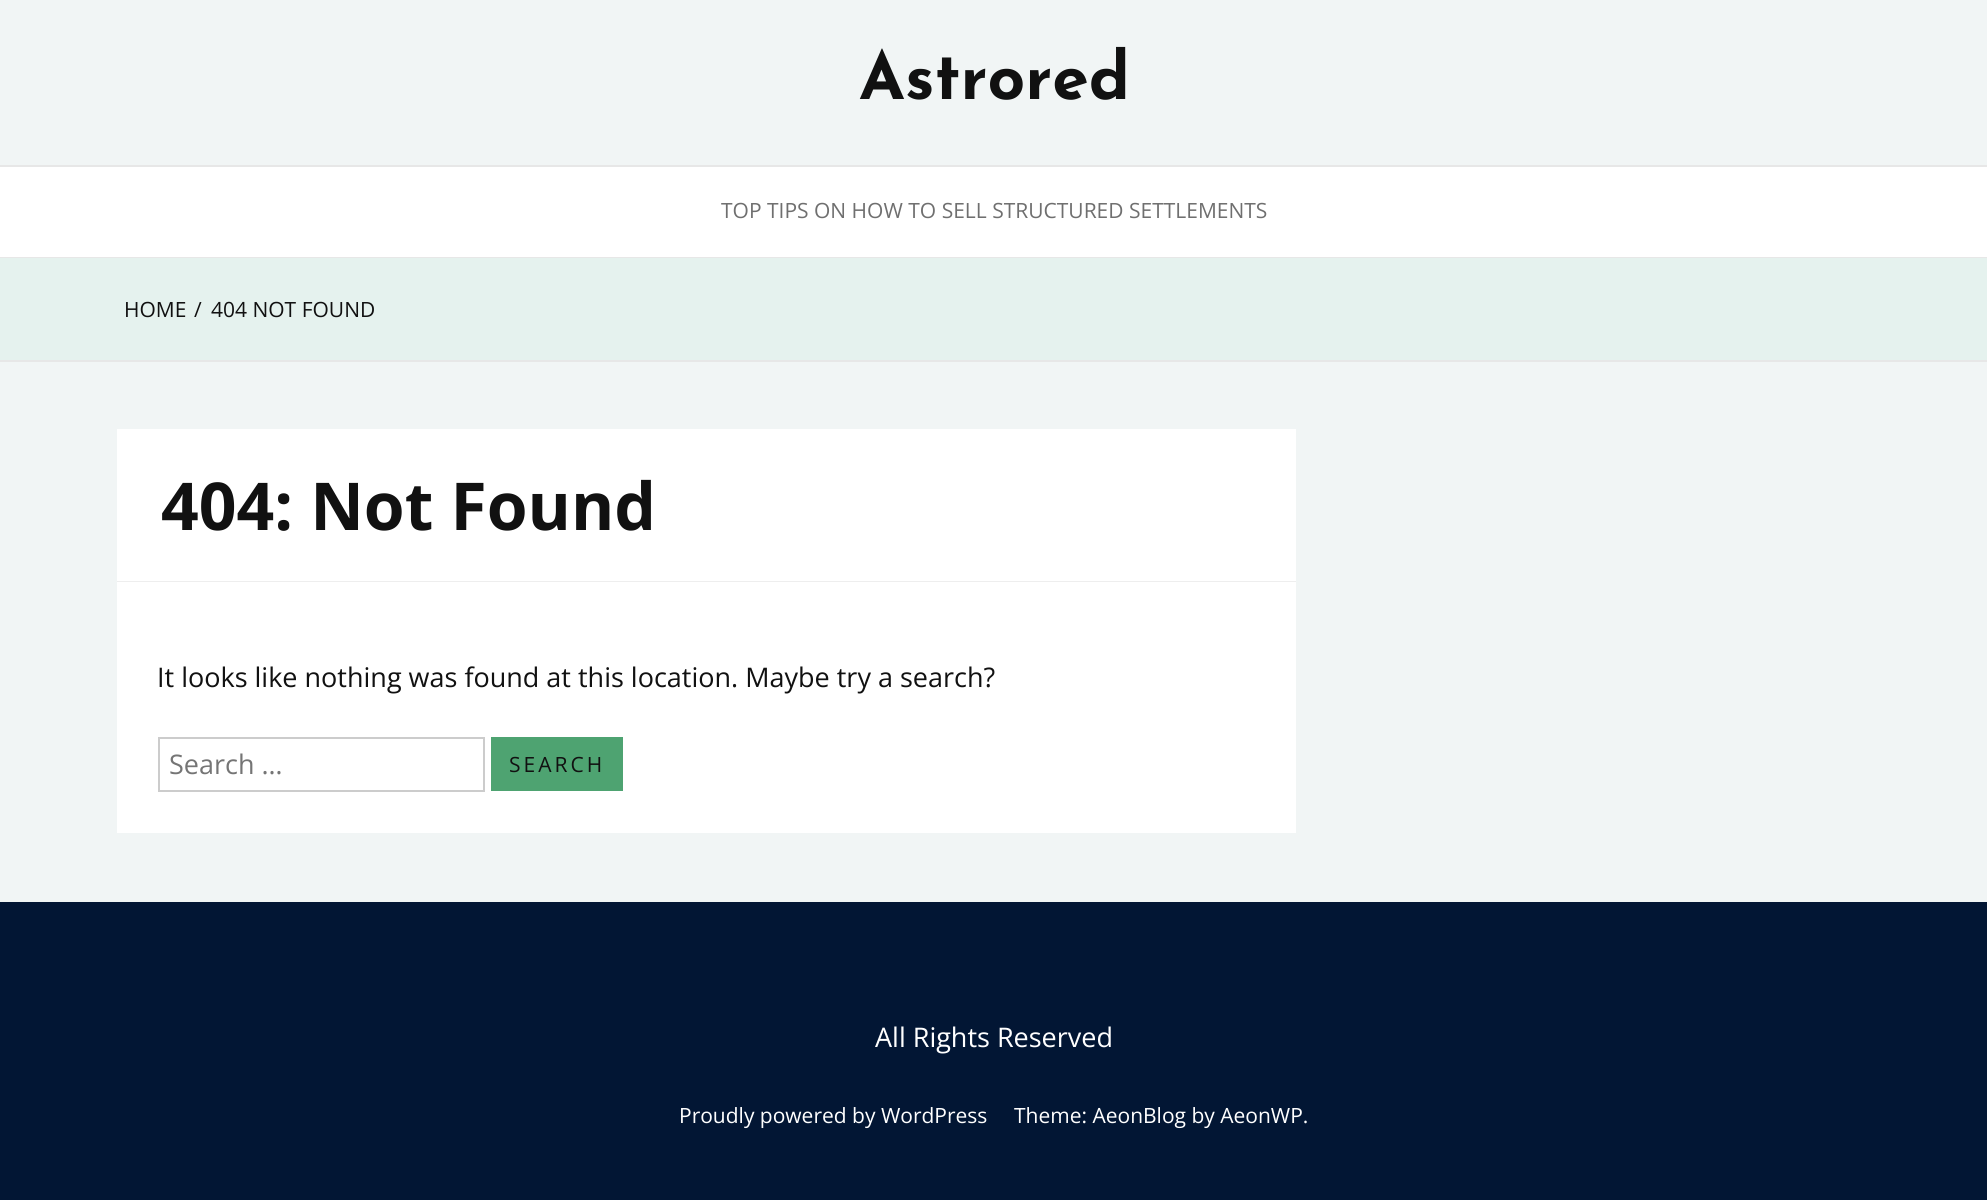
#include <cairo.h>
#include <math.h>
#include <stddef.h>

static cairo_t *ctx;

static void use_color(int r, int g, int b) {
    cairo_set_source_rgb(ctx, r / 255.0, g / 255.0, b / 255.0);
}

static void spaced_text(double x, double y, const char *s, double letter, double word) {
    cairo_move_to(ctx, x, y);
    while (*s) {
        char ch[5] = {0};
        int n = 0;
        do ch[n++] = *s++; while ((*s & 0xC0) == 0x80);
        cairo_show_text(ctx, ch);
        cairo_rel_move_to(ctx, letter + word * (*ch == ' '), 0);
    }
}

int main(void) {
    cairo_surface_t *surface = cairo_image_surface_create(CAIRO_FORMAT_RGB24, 1987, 1200);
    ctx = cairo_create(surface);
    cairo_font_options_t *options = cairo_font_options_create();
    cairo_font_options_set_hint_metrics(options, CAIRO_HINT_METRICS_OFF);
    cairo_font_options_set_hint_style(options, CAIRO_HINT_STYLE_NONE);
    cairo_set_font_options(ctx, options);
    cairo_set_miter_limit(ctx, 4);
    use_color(241, 245, 245);
    cairo_paint(ctx);
    cairo_select_font_face(ctx, "Josefin Sans", CAIRO_FONT_SLANT_NORMAL, CAIRO_FONT_WEIGHT_BOLD);
    cairo_set_font_size(ctx, 66);
    use_color(17, 17, 17);
    cairo_move_to(ctx, 859, 99);
    cairo_show_text(ctx, "Astrored");
    use_color(255, 255, 255);
    cairo_rectangle(ctx, 0, 167, 1987, 90);
    cairo_fill(ctx);
    use_color(231, 231, 231);
    cairo_rectangle(ctx, 0, 165, 1987, 2);
    cairo_fill(ctx);
    cairo_rectangle(ctx, 0, 257, 1987, 1);
    cairo_fill(ctx);
    cairo_select_font_face(ctx, "Open Sans", CAIRO_FONT_SLANT_NORMAL, CAIRO_FONT_WEIGHT_NORMAL);
    cairo_set_font_size(ctx, 21);
    use_color(111, 111, 111);
    cairo_move_to(ctx, 721, 218);
    cairo_show_text(ctx, "TOP TIPS ON HOW TO SELL STRUCTURED SETTLEMENTS");
    use_color(229, 242, 238);
    cairo_rectangle(ctx, 0, 258, 1987, 102);
    cairo_fill(ctx);
    use_color(231, 231, 231);
    cairo_rectangle(ctx, 0, 360, 1987, 2);
    cairo_fill(ctx);
    use_color(17, 17, 17);
    cairo_move_to(ctx, 124, 317);
    cairo_show_text(ctx, "HOME");
    cairo_move_to(ctx, 194, 317);
    cairo_show_text(ctx, "/");
    cairo_move_to(ctx, 211, 317);
    cairo_show_text(ctx, "404 NOT FOUND");
    use_color(255, 255, 255);
    cairo_rectangle(ctx, 117, 429, 1179, 152);
    cairo_fill(ctx);
    use_color(238, 238, 238);
    cairo_rectangle(ctx, 117, 581, 1179, 1);
    cairo_fill(ctx);
    cairo_select_font_face(ctx, "Open Sans", CAIRO_FONT_SLANT_NORMAL, CAIRO_FONT_WEIGHT_BOLD);
    cairo_set_font_size(ctx, 66);
    use_color(17, 17, 17);
    cairo_move_to(ctx, 161, 530);
    cairo_show_text(ctx, "404: Not Found");
    use_color(255, 255, 255);
    cairo_rectangle(ctx, 117, 582, 1179, 251);
    cairo_fill(ctx);
    cairo_select_font_face(ctx, "Open Sans", CAIRO_FONT_SLANT_NORMAL, CAIRO_FONT_WEIGHT_NORMAL);
    cairo_set_font_size(ctx, 27);
    use_color(17, 17, 17);
    cairo_move_to(ctx, 157, 687);
    cairo_show_text(ctx, "It looks like nothing was found at this location. Maybe try a search?");
    cairo_rectangle(ctx, 159, 738, 325, 53);
    use_color(204, 204, 204);
    cairo_stroke(ctx);
    use_color(117, 117, 117);
    cairo_move_to(ctx, 169, 774);
    cairo_show_text(ctx, "Search …");
    use_color(78, 163, 113);
    cairo_rectangle(ctx, 491, 737, 132, 54);
    cairo_fill(ctx);
    cairo_set_font_size(ctx, 21);
    use_color(17, 17, 17);
    spaced_text(509, 772, "SEARCH", 3, 0);
    use_color(2, 22, 52);
    cairo_rectangle(ctx, 0, 902, 1987, 298);
    cairo_fill(ctx);
    cairo_set_font_size(ctx, 27);
    use_color(255, 255, 255);
    cairo_move_to(ctx, 875, 1047);
    cairo_show_text(ctx, "All Rights Reserved");
    cairo_set_font_size(ctx, 21);
    cairo_move_to(ctx, 679, 1123);
    cairo_show_text(ctx, "Proudly powered by WordPress");
    cairo_move_to(ctx, 1014, 1123);
    cairo_show_text(ctx, "Theme: AeonBlog by AeonWP.");
    cairo_surface_write_to_png(surface, "result.png");
    cairo_font_options_destroy(options);
    cairo_destroy(ctx);
    cairo_surface_destroy(surface);
    return 0;
}
